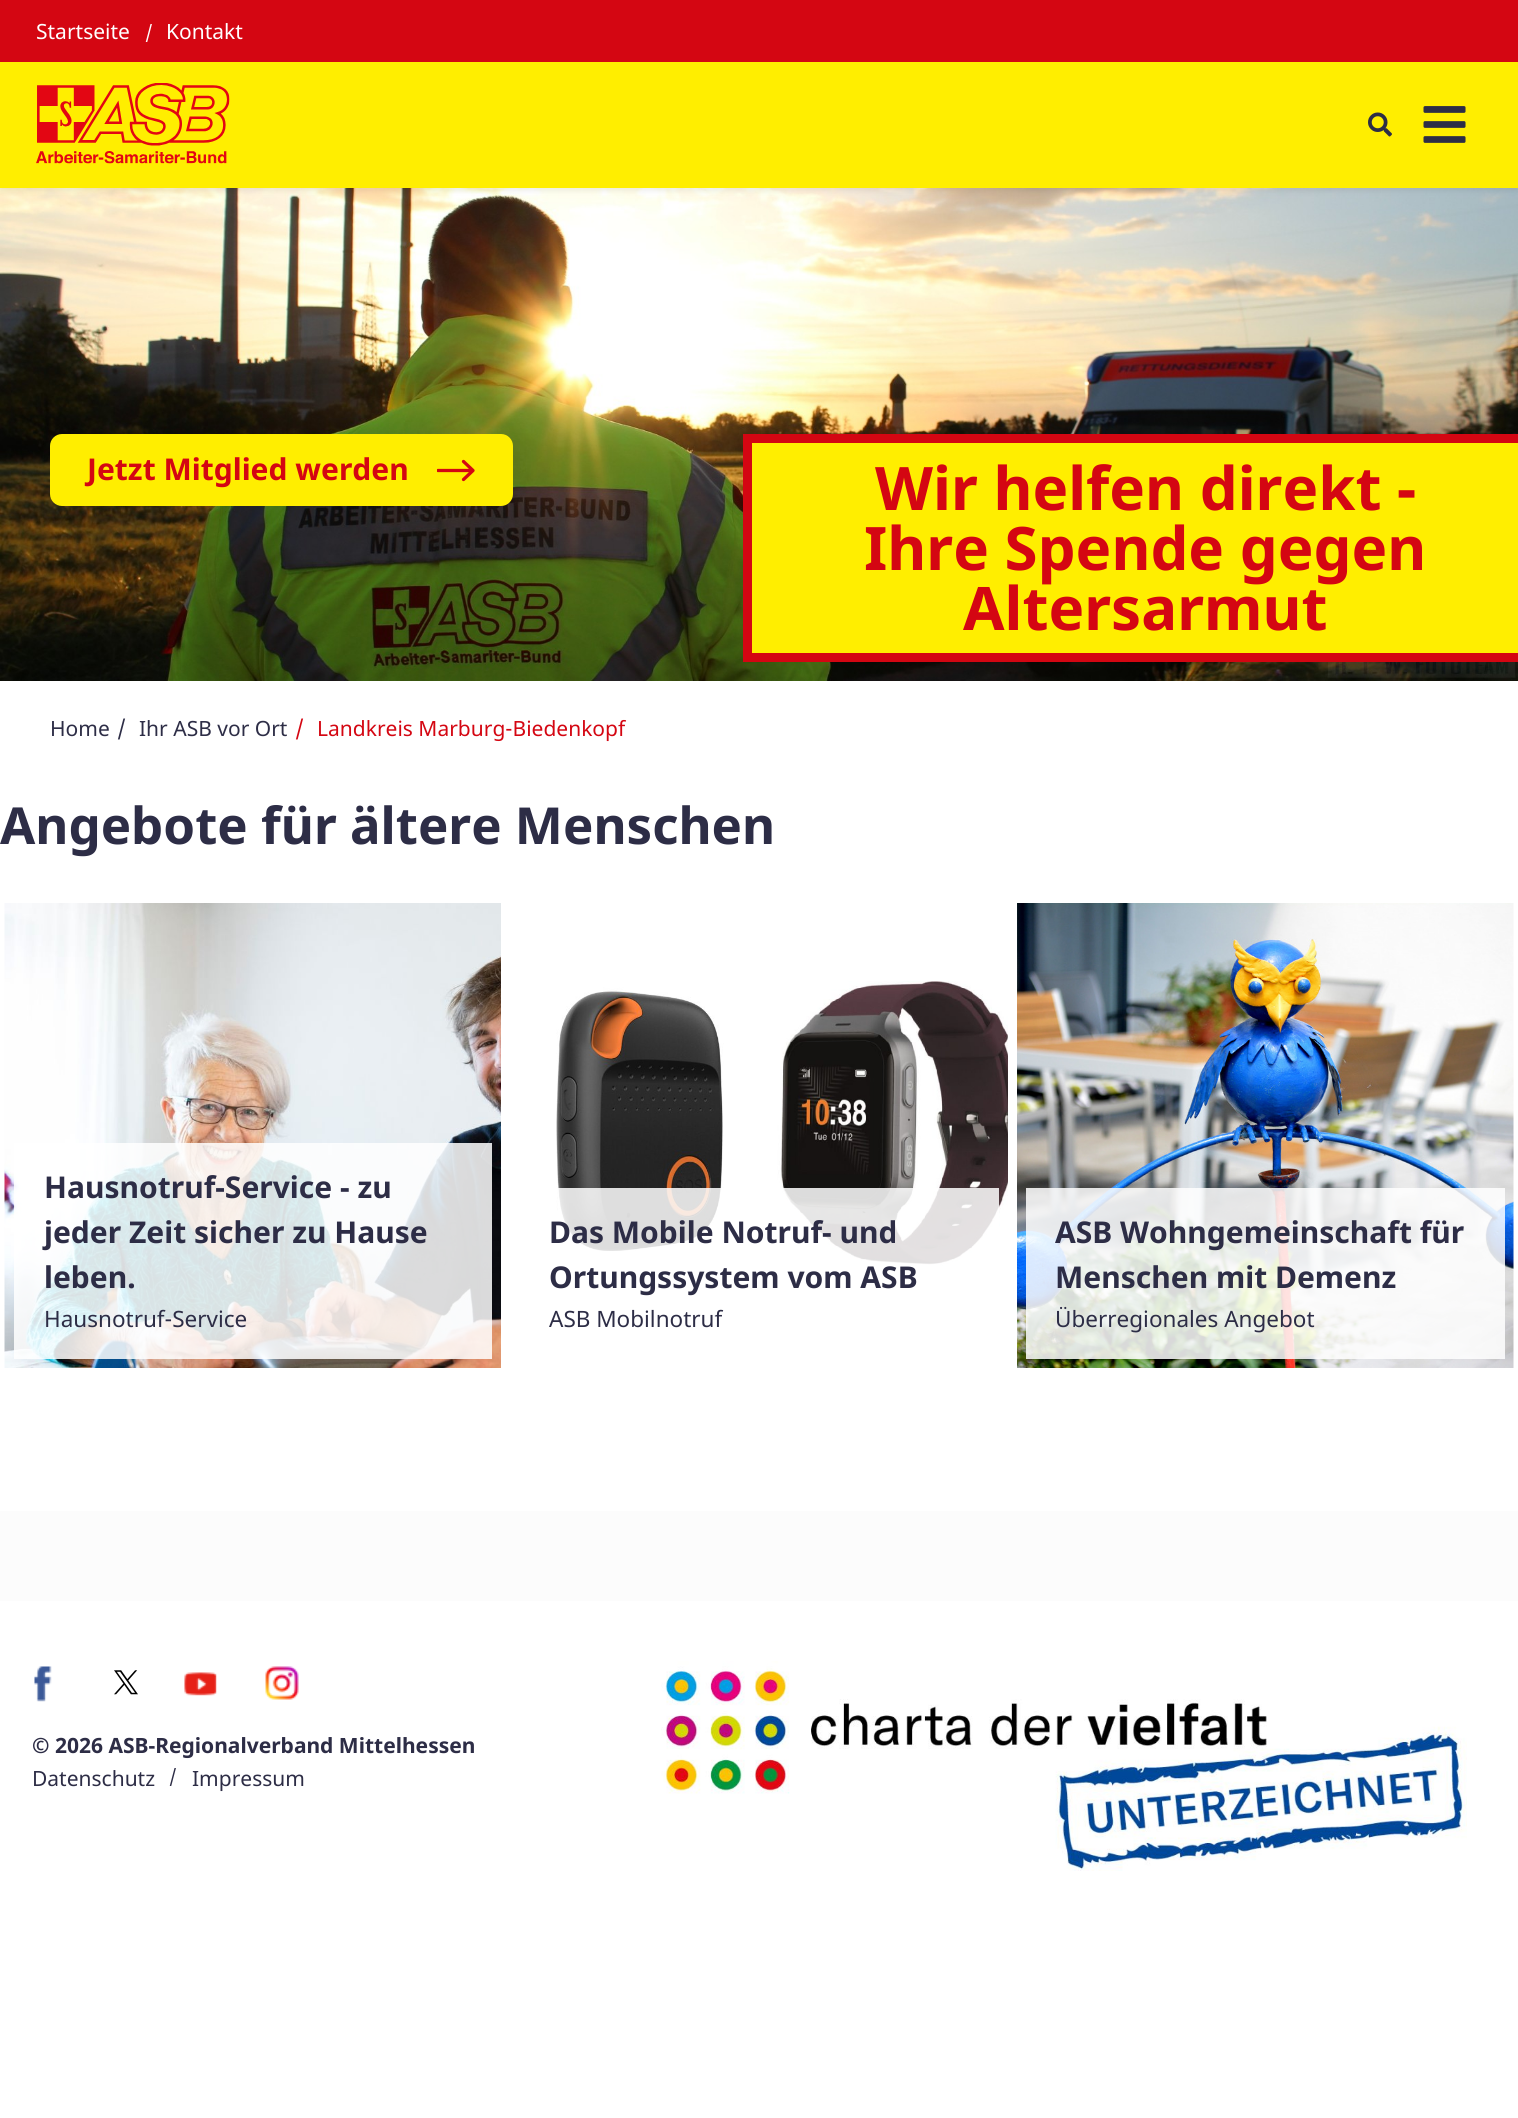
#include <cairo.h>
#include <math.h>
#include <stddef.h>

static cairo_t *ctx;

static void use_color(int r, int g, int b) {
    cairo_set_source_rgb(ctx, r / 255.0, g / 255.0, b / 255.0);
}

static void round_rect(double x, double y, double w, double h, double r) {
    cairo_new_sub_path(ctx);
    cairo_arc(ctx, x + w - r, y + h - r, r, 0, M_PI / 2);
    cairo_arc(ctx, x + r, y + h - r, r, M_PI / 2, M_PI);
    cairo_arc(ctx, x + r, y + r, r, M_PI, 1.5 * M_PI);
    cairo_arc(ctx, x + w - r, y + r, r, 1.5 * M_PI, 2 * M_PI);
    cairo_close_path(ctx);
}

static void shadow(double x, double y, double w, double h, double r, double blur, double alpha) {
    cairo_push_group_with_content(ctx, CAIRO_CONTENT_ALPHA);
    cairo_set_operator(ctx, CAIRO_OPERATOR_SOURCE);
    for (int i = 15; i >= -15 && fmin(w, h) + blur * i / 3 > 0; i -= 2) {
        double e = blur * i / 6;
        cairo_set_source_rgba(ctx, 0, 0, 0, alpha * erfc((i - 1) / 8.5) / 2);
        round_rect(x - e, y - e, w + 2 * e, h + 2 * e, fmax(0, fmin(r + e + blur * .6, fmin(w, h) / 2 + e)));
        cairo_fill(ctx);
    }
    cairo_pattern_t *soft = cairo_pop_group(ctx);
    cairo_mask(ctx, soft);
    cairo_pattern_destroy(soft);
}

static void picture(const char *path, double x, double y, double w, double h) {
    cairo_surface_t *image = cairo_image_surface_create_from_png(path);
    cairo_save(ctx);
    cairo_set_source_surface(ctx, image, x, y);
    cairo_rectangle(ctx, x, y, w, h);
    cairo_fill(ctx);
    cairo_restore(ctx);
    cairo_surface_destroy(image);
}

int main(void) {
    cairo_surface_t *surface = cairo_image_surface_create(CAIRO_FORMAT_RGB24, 1518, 2118);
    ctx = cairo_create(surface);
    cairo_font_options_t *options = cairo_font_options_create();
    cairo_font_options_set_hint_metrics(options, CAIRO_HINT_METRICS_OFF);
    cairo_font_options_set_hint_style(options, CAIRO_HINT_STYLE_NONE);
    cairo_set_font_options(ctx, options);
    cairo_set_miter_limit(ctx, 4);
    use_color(255, 255, 255);
    cairo_paint(ctx);
    picture("img4.png", 0, 188, 1518, 493);
    use_color(0, 0, 0);
    shadow(0, 3, 1518, 188, 0, 3, 0.07);
    use_color(212, 6, 18);
    cairo_rectangle(ctx, 0, 0, 1518, 62);
    cairo_fill(ctx);
    cairo_select_font_face(ctx, "Noto Sans", CAIRO_FONT_SLANT_NORMAL, CAIRO_FONT_WEIGHT_NORMAL);
    cairo_set_font_size(ctx, 21);
    use_color(255, 255, 255);
    cairo_move_to(ctx, 36, 39);
    cairo_show_text(ctx, "Startseite");
    cairo_set_font_size(ctx, 18);
    cairo_move_to(ctx, 145, 39);
    cairo_show_text(ctx, "/");
    cairo_set_font_size(ctx, 21);
    cairo_move_to(ctx, 166, 39);
    cairo_show_text(ctx, "Kontakt");
    use_color(255, 238, 0);
    cairo_rectangle(ctx, 0, 62, 1518, 126);
    cairo_fill(ctx);
    picture("img1.png", 36, 83, 194, 81);
    picture("img2.png", 1368, 112, 24, 25);
    picture("img3.png", 1423, 106, 43, 37);
    round_rect(51, 435, 461, 70, 11);
    cairo_fill_preserve(ctx);
    cairo_stroke(ctx);
    cairo_select_font_face(ctx, "Noto Sans", CAIRO_FONT_SLANT_NORMAL, CAIRO_FONT_WEIGHT_BOLD);
    cairo_set_font_size(ctx, 30);
    use_color(212, 6, 18);
    cairo_move_to(ctx, 87, 480);
    cairo_show_text(ctx, "Jetzt Mitglied werden");
    cairo_save(ctx);
    cairo_rectangle(ctx, 437, 459, 39, 23);
    cairo_clip(ctx);
    cairo_new_path(ctx);
    cairo_move_to(ctx, 438, 470.5);
    cairo_line_to(ctx, 473, 470.5);
    cairo_move_to(ctx, 473, 470.5);
    cairo_line_to(ctx, 463.5, 461.5);
    cairo_move_to(ctx, 473, 470.5);
    cairo_line_to(ctx, 463.5, 479.5);
    cairo_set_line_width(ctx, 3.3);
    cairo_set_line_cap(ctx, CAIRO_LINE_CAP_ROUND);
    cairo_set_line_join(ctx, CAIRO_LINE_JOIN_ROUND);
    cairo_stroke(ctx);
    cairo_restore(ctx);
    use_color(255, 238, 0);
    cairo_rectangle(ctx, 747.5, 438.5, 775, 219);
    cairo_fill_preserve(ctx);
    use_color(212, 6, 18);
    cairo_set_line_width(ctx, 9);
    cairo_stroke(ctx);
    cairo_set_font_size(ctx, 60);
    cairo_move_to(ctx, 875, 510);
    cairo_show_text(ctx, "Wir helfen direkt -");
    cairo_move_to(ctx, 864, 570);
    cairo_show_text(ctx, "Ihre Spende gegen");
    cairo_move_to(ctx, 963, 630);
    cairo_show_text(ctx, "Altersarmut");
    cairo_select_font_face(ctx, "Noto Sans", CAIRO_FONT_SLANT_NORMAL, CAIRO_FONT_WEIGHT_NORMAL);
    cairo_set_font_size(ctx, 21);
    use_color(45, 45, 70);
    cairo_move_to(ctx, 50, 736);
    cairo_show_text(ctx, "Home");
    cairo_move_to(ctx, 117, 736);
    cairo_show_text(ctx, "/");
    cairo_move_to(ctx, 139, 736);
    cairo_show_text(ctx, "Ihr ASB vor Ort");
    use_color(212, 6, 18);
    cairo_move_to(ctx, 295, 736);
    cairo_show_text(ctx, "/");
    cairo_move_to(ctx, 317, 736);
    cairo_show_text(ctx, "Landkreis Marburg-Biedenkopf");
    cairo_select_font_face(ctx, "Noto Sans", CAIRO_FONT_SLANT_NORMAL, CAIRO_FONT_WEIGHT_BOLD);
    cairo_set_font_size(ctx, 51);
    use_color(45, 45, 70);
    cairo_move_to(ctx, 0, 844);
    cairo_show_text(ctx, "Angebote für ältere Menschen");
    picture("img5.png", 4, 903, 497, 465);
    cairo_set_source_rgba(ctx, 1, 1, 1, 0.85);
    cairo_rectangle(ctx, 14, 1143, 478, 216);
    cairo_fill(ctx);
    cairo_set_font_size(ctx, 30);
    use_color(45, 45, 70);
    cairo_move_to(ctx, 44, 1198);
    cairo_show_text(ctx, "Hausnotruf-Service - zu");
    cairo_move_to(ctx, 44, 1243);
    cairo_show_text(ctx, "jeder Zeit sicher zu Hause");
    cairo_move_to(ctx, 44, 1288);
    cairo_show_text(ctx, "leben.");
    cairo_select_font_face(ctx, "Noto Sans", CAIRO_FONT_SLANT_NORMAL, CAIRO_FONT_WEIGHT_NORMAL);
    cairo_set_font_size(ctx, 22.5);
    cairo_move_to(ctx, 44, 1327);
    cairo_show_text(ctx, "Hausnotruf-Service");
    picture("img6.png", 556, 981, 452, 285);
    cairo_set_source_rgba(ctx, 1, 1, 1, 0.85);
    cairo_rectangle(ctx, 558, 1188, 441, 78);
    cairo_fill(ctx);
    cairo_select_font_face(ctx, "Noto Sans", CAIRO_FONT_SLANT_NORMAL, CAIRO_FONT_WEIGHT_BOLD);
    cairo_set_font_size(ctx, 30);
    use_color(45, 45, 70);
    cairo_move_to(ctx, 549, 1243);
    cairo_show_text(ctx, "Das Mobile Notruf- und");
    cairo_move_to(ctx, 549, 1288);
    cairo_show_text(ctx, "Ortungssystem vom ASB");
    cairo_select_font_face(ctx, "Noto Sans", CAIRO_FONT_SLANT_NORMAL, CAIRO_FONT_WEIGHT_NORMAL);
    cairo_set_font_size(ctx, 22.5);
    cairo_move_to(ctx, 549, 1327);
    cairo_show_text(ctx, "ASB Mobilnotruf");
    picture("img7.png", 1017, 903, 497, 465);
    cairo_set_source_rgba(ctx, 1, 1, 1, 0.85);
    cairo_rectangle(ctx, 1026, 1188, 479, 171);
    cairo_fill(ctx);
    cairo_select_font_face(ctx, "Noto Sans", CAIRO_FONT_SLANT_NORMAL, CAIRO_FONT_WEIGHT_BOLD);
    cairo_set_font_size(ctx, 30);
    use_color(45, 45, 70);
    cairo_move_to(ctx, 1055, 1243);
    cairo_show_text(ctx, "ASB Wohngemeinschaft für");
    cairo_move_to(ctx, 1055, 1288);
    cairo_show_text(ctx, "Menschen mit Demenz");
    cairo_select_font_face(ctx, "Noto Sans", CAIRO_FONT_SLANT_NORMAL, CAIRO_FONT_WEIGHT_NORMAL);
    cairo_set_font_size(ctx, 22.5);
    cairo_move_to(ctx, 1055, 1327);
    cairo_show_text(ctx, "Überregionales Angebot");
    use_color(252, 252, 252);
    cairo_rectangle(ctx, 0, 1511, 1518, 90);
    cairo_fill(ctx);
    picture("img8.png", 34, 1666, 18, 36);
    picture("img9.png", 114, 1670, 24, 25);
    picture("img10.png", 184, 1672, 33, 24);
    picture("img11.png", 265, 1666, 34, 34);
    cairo_select_font_face(ctx, "Noto Sans", CAIRO_FONT_SLANT_NORMAL, CAIRO_FONT_WEIGHT_BOLD);
    cairo_set_font_size(ctx, 21);
    use_color(45, 45, 70);
    cairo_move_to(ctx, 32, 1753);
    cairo_show_text(ctx, "© 2026 ASB-Regionalverband Mittelhessen");
    cairo_select_font_face(ctx, "Noto Sans", CAIRO_FONT_SLANT_NORMAL, CAIRO_FONT_WEIGHT_NORMAL);
    cairo_move_to(ctx, 32, 1786);
    cairo_show_text(ctx, "Datenschutz");
    cairo_set_font_size(ctx, 18);
    cairo_move_to(ctx, 169, 1783);
    cairo_show_text(ctx, "/");
    cairo_set_font_size(ctx, 21);
    cairo_move_to(ctx, 192, 1786);
    cairo_show_text(ctx, "Impressum");
    picture("img12.png", 661, 1661, 806, 210);
    cairo_surface_write_to_png(surface, "result.png");
    cairo_font_options_destroy(options);
    cairo_destroy(ctx);
    cairo_surface_destroy(surface);
    return 0;
}
